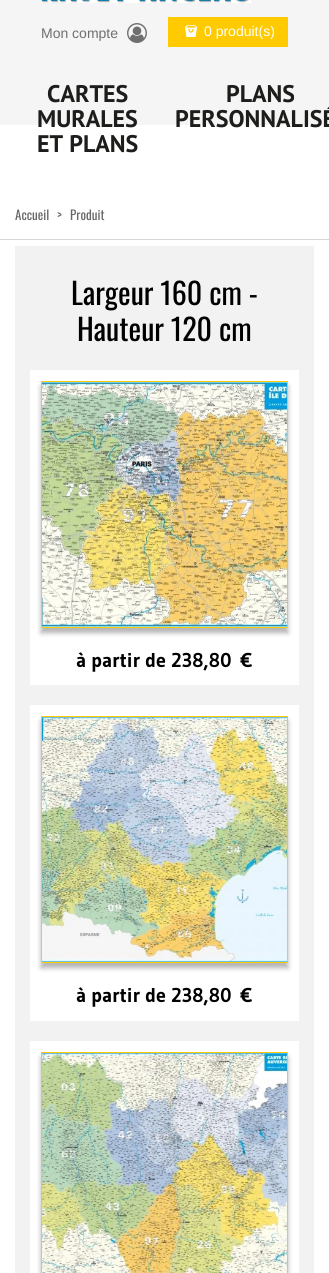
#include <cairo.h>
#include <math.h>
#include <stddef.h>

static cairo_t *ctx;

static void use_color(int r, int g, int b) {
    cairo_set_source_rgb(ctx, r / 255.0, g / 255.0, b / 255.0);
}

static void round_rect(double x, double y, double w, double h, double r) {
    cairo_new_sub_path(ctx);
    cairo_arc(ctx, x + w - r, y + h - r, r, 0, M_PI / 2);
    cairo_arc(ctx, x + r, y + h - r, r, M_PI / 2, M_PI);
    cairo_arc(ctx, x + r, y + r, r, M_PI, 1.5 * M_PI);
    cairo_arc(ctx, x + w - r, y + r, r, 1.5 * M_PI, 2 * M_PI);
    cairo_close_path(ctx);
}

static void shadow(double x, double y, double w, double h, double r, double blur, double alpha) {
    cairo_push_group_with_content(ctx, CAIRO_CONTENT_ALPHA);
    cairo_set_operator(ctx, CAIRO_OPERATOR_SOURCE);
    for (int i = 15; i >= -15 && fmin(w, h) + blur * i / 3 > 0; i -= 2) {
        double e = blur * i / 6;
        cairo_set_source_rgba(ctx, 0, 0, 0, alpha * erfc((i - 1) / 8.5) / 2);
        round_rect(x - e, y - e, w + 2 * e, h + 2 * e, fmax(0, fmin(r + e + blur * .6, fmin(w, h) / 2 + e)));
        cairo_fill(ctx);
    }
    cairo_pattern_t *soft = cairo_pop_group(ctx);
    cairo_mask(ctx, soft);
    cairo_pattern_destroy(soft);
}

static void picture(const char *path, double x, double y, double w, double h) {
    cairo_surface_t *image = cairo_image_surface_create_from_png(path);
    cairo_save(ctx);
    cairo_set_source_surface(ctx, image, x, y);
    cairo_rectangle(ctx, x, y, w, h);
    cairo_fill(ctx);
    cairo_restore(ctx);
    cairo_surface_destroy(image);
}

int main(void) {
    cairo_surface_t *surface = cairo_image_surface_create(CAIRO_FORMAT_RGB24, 329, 1273);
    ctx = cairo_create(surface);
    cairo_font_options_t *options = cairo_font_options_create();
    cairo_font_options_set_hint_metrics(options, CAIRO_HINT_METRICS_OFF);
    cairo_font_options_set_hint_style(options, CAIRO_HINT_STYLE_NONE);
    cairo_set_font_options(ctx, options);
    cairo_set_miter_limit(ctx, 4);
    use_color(255, 255, 255);
    cairo_paint(ctx);
    use_color(245, 245, 245);
    cairo_rectangle(ctx, 0, 0, 329, 125);
    cairo_fill(ctx);
    picture("img1.png", 41, 0, 210, 3);
    cairo_select_font_face(ctx, "Liberation Sans", CAIRO_FONT_SLANT_NORMAL, CAIRO_FONT_WEIGHT_NORMAL);
    cairo_set_font_size(ctx, 14);
    use_color(111, 111, 111);
    cairo_move_to(ctx, 41, 38);
    cairo_show_text(ctx, "Mon compte");
    picture("img2.png", 127, 23, 20, 20);
    use_color(255, 202, 0);
    cairo_rectangle(ctx, 168, 17, 120, 30);
    cairo_fill(ctx);
    picture("img3.png", 185, 25, 12, 12);
    use_color(255, 255, 255);
    cairo_move_to(ctx, 204, 36);
    cairo_show_text(ctx, "0 produit(s)");
    cairo_select_font_face(ctx, "PT Sans", CAIRO_FONT_SLANT_NORMAL, CAIRO_FONT_WEIGHT_BOLD);
    cairo_set_font_size(ctx, 24);
    use_color(29, 29, 27);
    cairo_move_to(ctx, 47, 102);
    cairo_show_text(ctx, "CARTES");
    cairo_move_to(ctx, 37, 127);
    cairo_show_text(ctx, "MURALES");
    cairo_move_to(ctx, 37, 152);
    cairo_show_text(ctx, "ET PLANS");
    cairo_move_to(ctx, 226, 102);
    cairo_show_text(ctx, "PLANS");
    cairo_move_to(ctx, 175, 127);
    cairo_show_text(ctx, "PERSONNALISÉ");
    use_color(214, 214, 214);
    cairo_rectangle(ctx, 0, 239, 329, 1);
    cairo_fill(ctx);
    cairo_select_font_face(ctx, "Oswald", CAIRO_FONT_SLANT_NORMAL, CAIRO_FONT_WEIGHT_NORMAL);
    cairo_set_font_size(ctx, 13);
    use_color(104, 104, 104);
    cairo_move_to(ctx, 15, 220);
    cairo_show_text(ctx, "Accueil");
    cairo_move_to(ctx, 57, 220);
    cairo_show_text(ctx, ">");
    cairo_move_to(ctx, 70, 220);
    cairo_show_text(ctx, "Produit");
    use_color(242, 242, 242);
    cairo_rectangle(ctx, 15, 246, 299, 1027);
    cairo_fill(ctx);
    cairo_set_font_size(ctx, 30);
    use_color(0, 0, 0);
    cairo_move_to(ctx, 71, 305);
    cairo_show_text(ctx, "Largeur 160 cm -");
    cairo_move_to(ctx, 77, 341);
    cairo_show_text(ctx, "Hauteur 120 cm");
    use_color(255, 255, 255);
    cairo_rectangle(ctx, 30, 370, 269, 315);
    cairo_fill(ctx);
    use_color(0, 0, 0);
    shadow(41, 386, 247, 247, 0, 2.5, 0.3);
    cairo_rectangle(ctx, 41.5, 381.5, 246, 246);
    use_color(255, 202, 0);
    cairo_set_line_width(ctx, 1);
    cairo_stroke(ctx);
    picture("img4.png", 42, 382, 245, 245);
    cairo_select_font_face(ctx, "Gudea", CAIRO_FONT_SLANT_NORMAL, CAIRO_FONT_WEIGHT_BOLD);
    cairo_set_font_size(ctx, 20);
    use_color(0, 0, 0);
    cairo_move_to(ctx, 76, 667);
    cairo_show_text(ctx, "à partir de 238,80");
    cairo_move_to(ctx, 240, 667);
    cairo_show_text(ctx, "€");
    use_color(255, 255, 255);
    cairo_rectangle(ctx, 30, 705, 269, 316);
    cairo_fill(ctx);
    use_color(0, 0, 0);
    shadow(41, 721, 247, 247, 0, 2.5, 0.3);
    cairo_rectangle(ctx, 41.5, 716.5, 246, 246);
    use_color(255, 202, 0);
    cairo_stroke(ctx);
    picture("img5.png", 42, 717, 245, 245);
    use_color(0, 0, 0);
    cairo_move_to(ctx, 76, 1002);
    cairo_show_text(ctx, "à partir de 238,80");
    cairo_move_to(ctx, 240, 1002);
    cairo_show_text(ctx, "€");
    use_color(255, 255, 255);
    cairo_rectangle(ctx, 30, 1041, 269, 232);
    cairo_fill(ctx);
    use_color(0, 0, 0);
    shadow(41, 1057, 247, 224, 0, 2.5, 0.3);
    cairo_rectangle(ctx, 41.5, 1052.5, 246, 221);
    use_color(255, 202, 0);
    cairo_stroke(ctx);
    picture("img6.png", 42, 1053, 245, 220);
    cairo_surface_write_to_png(surface, "result.png");
    cairo_font_options_destroy(options);
    cairo_destroy(ctx);
    cairo_surface_destroy(surface);
    return 0;
}
